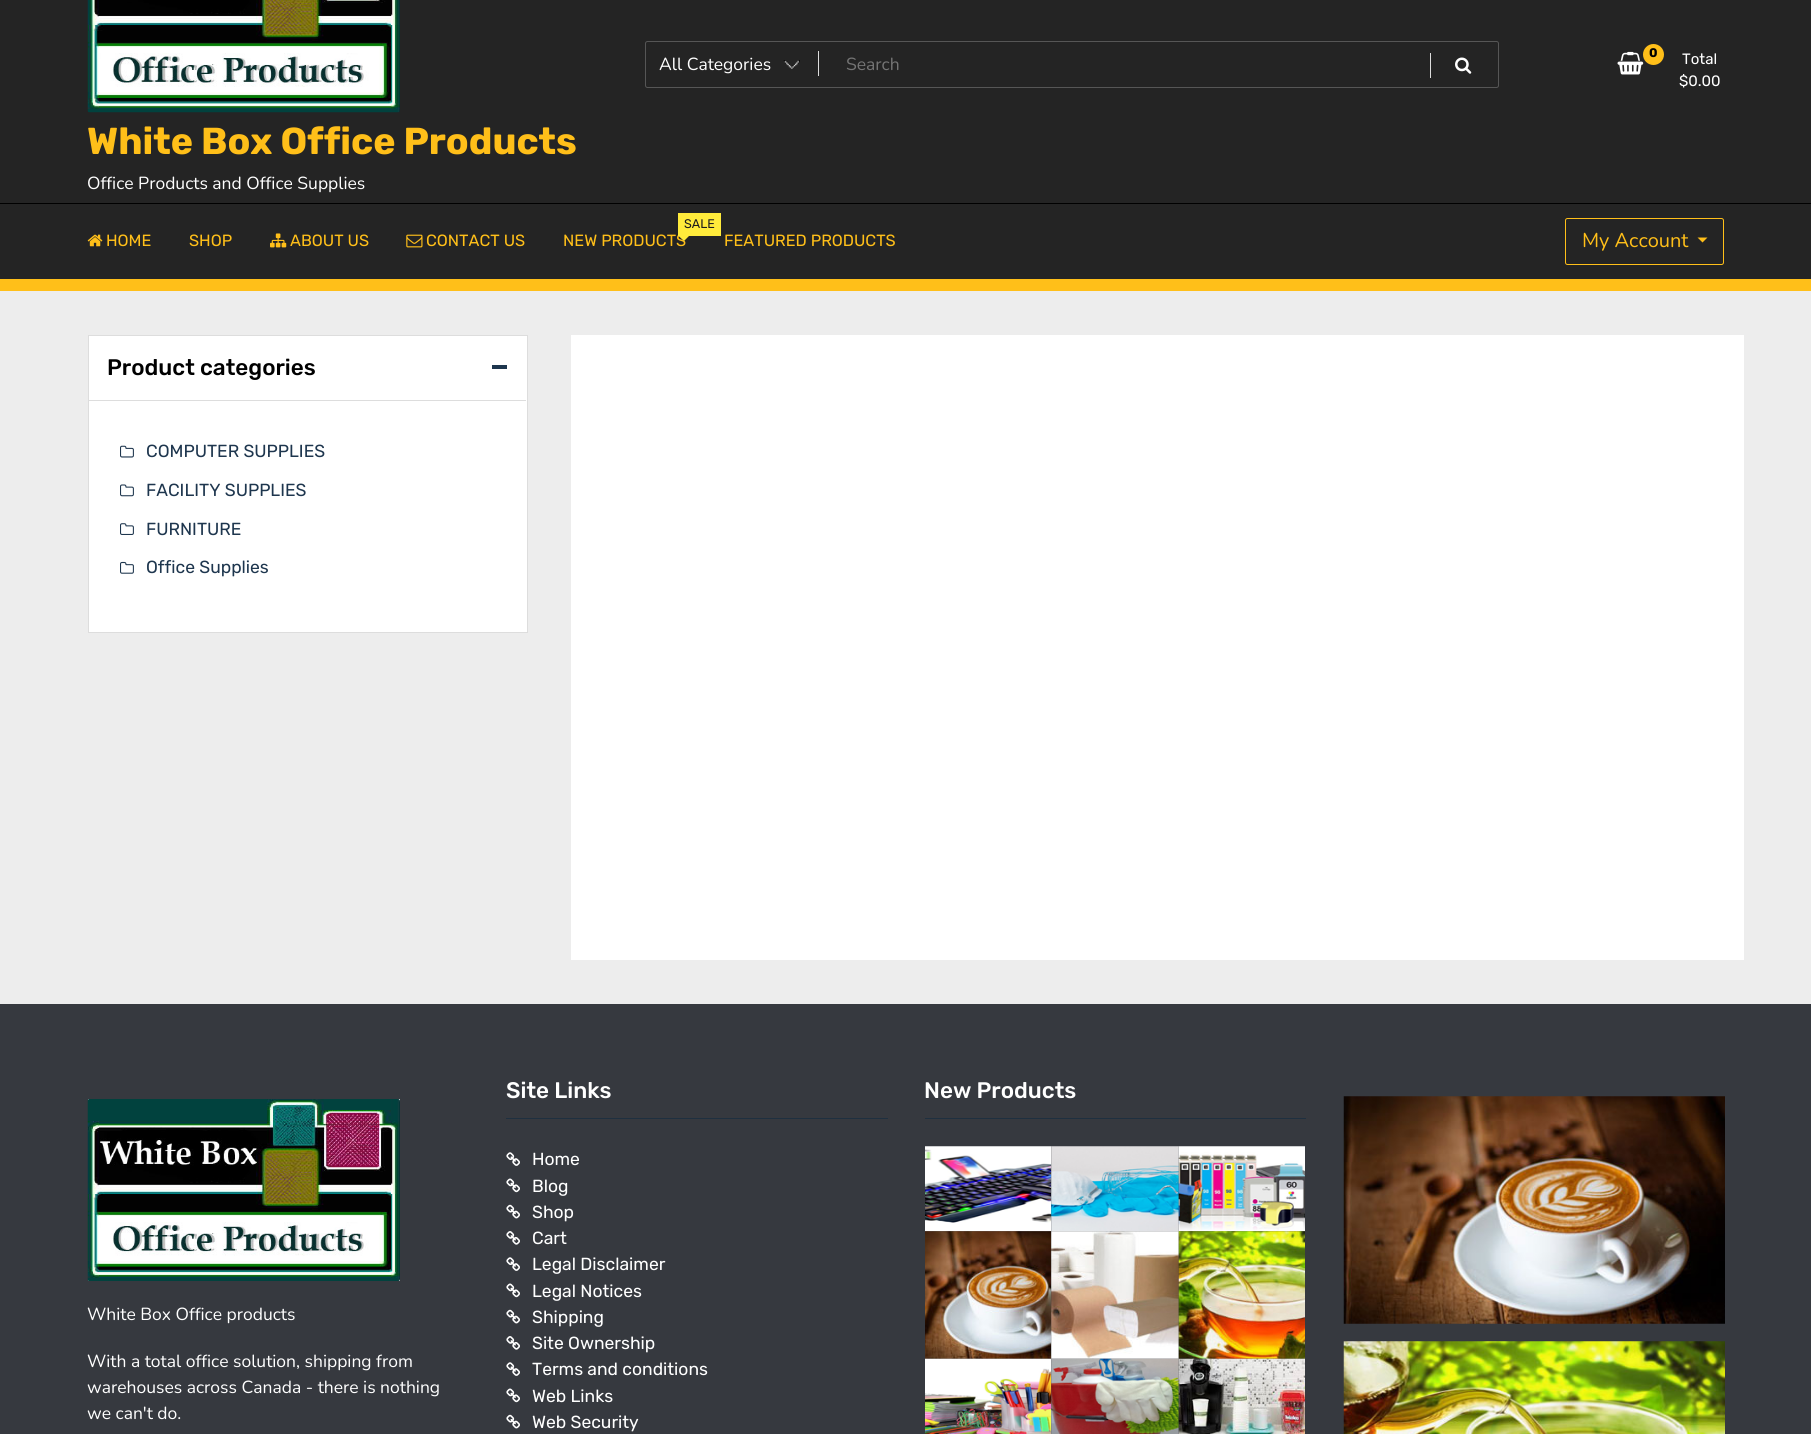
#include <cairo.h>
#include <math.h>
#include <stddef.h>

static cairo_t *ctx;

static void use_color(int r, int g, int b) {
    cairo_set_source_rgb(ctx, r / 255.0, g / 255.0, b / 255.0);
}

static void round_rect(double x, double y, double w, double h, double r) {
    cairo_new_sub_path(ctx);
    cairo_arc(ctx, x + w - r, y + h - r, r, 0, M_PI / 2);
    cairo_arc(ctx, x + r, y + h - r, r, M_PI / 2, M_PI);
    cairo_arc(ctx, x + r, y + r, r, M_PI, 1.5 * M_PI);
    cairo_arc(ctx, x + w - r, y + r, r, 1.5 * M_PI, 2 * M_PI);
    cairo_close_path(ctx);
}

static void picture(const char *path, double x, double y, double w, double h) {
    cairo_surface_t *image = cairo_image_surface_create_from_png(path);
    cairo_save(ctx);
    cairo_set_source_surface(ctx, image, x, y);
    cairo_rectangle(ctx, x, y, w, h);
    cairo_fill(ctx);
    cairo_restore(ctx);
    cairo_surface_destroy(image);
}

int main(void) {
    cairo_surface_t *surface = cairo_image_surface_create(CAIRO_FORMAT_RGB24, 1811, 1434);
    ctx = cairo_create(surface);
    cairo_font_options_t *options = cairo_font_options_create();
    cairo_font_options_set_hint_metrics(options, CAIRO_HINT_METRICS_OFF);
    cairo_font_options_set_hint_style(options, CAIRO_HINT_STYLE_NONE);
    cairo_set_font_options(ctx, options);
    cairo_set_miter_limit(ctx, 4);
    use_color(237, 237, 237);
    cairo_paint(ctx);
    use_color(36, 36, 36);
    cairo_rectangle(ctx, 0, 0, 1811, 279);
    cairo_fill(ctx);
    round_rect(645.5, 41.5, 853, 46, 2);
    use_color(86, 86, 86);
    cairo_set_line_width(ctx, 1);
    cairo_stroke(ctx);
    picture("img1.png", 783, 60, 17, 9);
    cairo_select_font_face(ctx, "Nunito", CAIRO_FONT_SLANT_NORMAL, CAIRO_FONT_WEIGHT_NORMAL);
    cairo_set_font_size(ctx, 17.5);
    use_color(255, 255, 255);
    cairo_move_to(ctx, 659, 70);
    cairo_show_text(ctx, "All Categories");
    use_color(221, 221, 221);
    cairo_rectangle(ctx, 818, 51, 1, 25);
    cairo_fill(ctx);
    use_color(117, 117, 117);
    cairo_move_to(ctx, 846, 70);
    cairo_show_text(ctx, "Search");
    use_color(221, 221, 221);
    cairo_rectangle(ctx, 1430, 53, 1, 25);
    cairo_fill(ctx);
    picture("img2.png", 1455, 57, 17, 17);
    picture("img3.png", 1617, 51, 27, 24);
    use_color(255, 191, 25);
    cairo_arc(ctx, 1653.5, 54.5, 10.5, 0, 2 * M_PI);
    cairo_fill(ctx);
    cairo_select_font_face(ctx, "Rubik", CAIRO_FONT_SLANT_NORMAL, CAIRO_FONT_WEIGHT_BOLD);
    cairo_set_font_size(ctx, 12.5);
    use_color(0, 0, 0);
    cairo_move_to(ctx, 1649, 57);
    cairo_show_text(ctx, "0");
    cairo_select_font_face(ctx, "Rubik", CAIRO_FONT_SLANT_NORMAL, CAIRO_FONT_WEIGHT_NORMAL);
    cairo_set_font_size(ctx, 15);
    use_color(255, 255, 255);
    cairo_move_to(ctx, 1682, 64);
    cairo_show_text(ctx, "Total");
    cairo_move_to(ctx, 1679, 86);
    cairo_show_text(ctx, "$0.00");
    picture("img4.png", 87, 0, 313, 113);
    cairo_select_font_face(ctx, "Rubik", CAIRO_FONT_SLANT_NORMAL, CAIRO_FONT_WEIGHT_BOLD);
    cairo_set_font_size(ctx, 37.5);
    use_color(255, 191, 25);
    cairo_move_to(ctx, 87, 154);
    cairo_show_text(ctx, "White Box Office Products");
    cairo_select_font_face(ctx, "Nunito", CAIRO_FONT_SLANT_NORMAL, CAIRO_FONT_WEIGHT_NORMAL);
    cairo_set_font_size(ctx, 17.5);
    use_color(255, 255, 255);
    cairo_move_to(ctx, 87, 189);
    cairo_show_text(ctx, "Office Products and Office Supplies");
    use_color(0, 0, 0);
    cairo_rectangle(ctx, 0, 203, 1811, 1);
    cairo_fill(ctx);
    use_color(255, 191, 25);
    cairo_rectangle(ctx, 0, 279, 1811, 12);
    cairo_fill(ctx);
    picture("img5.png", 87, 234, 16, 13);
    cairo_select_font_face(ctx, "Rubik", CAIRO_FONT_SLANT_NORMAL, CAIRO_FONT_WEIGHT_NORMAL);
    cairo_set_font_size(ctx, 16.25);
    cairo_move_to(ctx, 106, 246);
    cairo_show_text(ctx, "HOME");
    cairo_move_to(ctx, 189, 246);
    cairo_show_text(ctx, "SHOP");
    picture("img6.png", 270, 233, 17, 15);
    cairo_move_to(ctx, 290, 246);
    cairo_show_text(ctx, "ABOUT US");
    picture("img7.png", 406, 234, 17, 14);
    cairo_move_to(ctx, 426, 246);
    cairo_show_text(ctx, "CONTACT US");
    cairo_move_to(ctx, 563, 246);
    cairo_show_text(ctx, "NEW PRODUCTS");
    use_color(255, 235, 59);
    cairo_rectangle(ctx, 678, 213, 43, 23);
    cairo_fill(ctx);
    cairo_set_font_size(ctx, 12.5);
    use_color(28, 28, 28);
    cairo_move_to(ctx, 684, 228);
    cairo_show_text(ctx, "SALE");
    use_color(255, 235, 59);
    cairo_new_path(ctx);
    cairo_move_to(ctx, 677.5, 235);
    cairo_line_to(ctx, 690, 235);
    cairo_line_to(ctx, 684, 241);
    cairo_close_path(ctx);
    cairo_fill(ctx);
    cairo_set_font_size(ctx, 16.25);
    use_color(255, 191, 25);
    cairo_move_to(ctx, 724, 246);
    cairo_show_text(ctx, "FEATURED PRODUCTS");
    round_rect(1565.5, 218.5, 158, 46, 2);
    cairo_stroke(ctx);
    cairo_select_font_face(ctx, "Nunito", CAIRO_FONT_SLANT_NORMAL, CAIRO_FONT_WEIGHT_NORMAL);
    cairo_set_font_size(ctx, 20);
    cairo_move_to(ctx, 1582, 247);
    cairo_show_text(ctx, "My Account");
    cairo_new_path(ctx);
    cairo_move_to(ctx, 1697.5, 237.5);
    cairo_line_to(ctx, 1707.5, 237.5);
    cairo_line_to(ctx, 1702.5, 242.5);
    cairo_close_path(ctx);
    cairo_fill(ctx);
    use_color(255, 255, 255);
    cairo_rectangle(ctx, 88.5, 335.5, 439, 297);
    cairo_fill_preserve(ctx);
    use_color(221, 221, 221);
    cairo_stroke(ctx);
    cairo_select_font_face(ctx, "Rubik Medium", CAIRO_FONT_SLANT_NORMAL, CAIRO_FONT_WEIGHT_NORMAL);
    cairo_set_font_size(ctx, 22.5);
    use_color(0, 0, 0);
    cairo_move_to(ctx, 107, 375);
    cairo_show_text(ctx, "Product categories");
    use_color(30, 54, 78);
    cairo_rectangle(ctx, 492, 365, 15, 4);
    cairo_fill(ctx);
    use_color(221, 221, 221);
    cairo_rectangle(ctx, 89, 400, 437, 1);
    cairo_fill(ctx);
    picture("img8.png", 120, 445, 14, 13);
    cairo_select_font_face(ctx, "Rubik", CAIRO_FONT_SLANT_NORMAL, CAIRO_FONT_WEIGHT_NORMAL);
    cairo_set_font_size(ctx, 17.5);
    use_color(30, 54, 78);
    cairo_move_to(ctx, 146, 457);
    cairo_show_text(ctx, "COMPUTER SUPPLIES");
    picture("img9.png", 120, 484, 14, 13);
    cairo_move_to(ctx, 146, 496);
    cairo_show_text(ctx, "FACILITY SUPPLIES");
    picture("img10.png", 120, 523, 14, 12);
    cairo_move_to(ctx, 146, 535);
    cairo_show_text(ctx, "FURNITURE");
    picture("img11.png", 120, 561, 14, 13);
    cairo_move_to(ctx, 146, 573);
    cairo_show_text(ctx, "Office Supplies");
    use_color(255, 255, 255);
    cairo_rectangle(ctx, 571, 335, 1173, 625);
    cairo_fill(ctx);
    use_color(54, 57, 63);
    cairo_rectangle(ctx, 0, 1004, 1811, 430);
    cairo_fill(ctx);
    cairo_select_font_face(ctx, "Rubik Medium", CAIRO_FONT_SLANT_NORMAL, CAIRO_FONT_WEIGHT_NORMAL);
    cairo_set_font_size(ctx, 22.5);
    use_color(255, 255, 255);
    cairo_move_to(ctx, 506, 1098);
    cairo_show_text(ctx, "Site Links");
    use_color(31, 48, 64);
    cairo_rectangle(ctx, 506, 1118, 382, 1);
    cairo_fill(ctx);
    picture("img12.png", 506, 1152, 14, 14);
    cairo_select_font_face(ctx, "Rubik", CAIRO_FONT_SLANT_NORMAL, CAIRO_FONT_WEIGHT_NORMAL);
    cairo_set_font_size(ctx, 17.5);
    use_color(255, 255, 255);
    cairo_move_to(ctx, 532, 1165);
    cairo_show_text(ctx, "Home");
    picture("img13.png", 506, 1178, 14, 15);
    cairo_move_to(ctx, 532, 1192);
    cairo_show_text(ctx, "Blog");
    picture("img14.png", 506, 1204, 14, 15);
    cairo_move_to(ctx, 532, 1218);
    cairo_show_text(ctx, "Shop");
    picture("img15.png", 506, 1231, 14, 14);
    cairo_move_to(ctx, 532, 1244);
    cairo_show_text(ctx, "Cart");
    picture("img12.png", 506, 1257, 14, 14);
    cairo_move_to(ctx, 532, 1270);
    cairo_show_text(ctx, "Legal Disclaimer");
    picture("img13.png", 506, 1283, 14, 15);
    cairo_move_to(ctx, 532, 1297);
    cairo_show_text(ctx, "Legal Notices");
    picture("img14.png", 506, 1309, 14, 15);
    cairo_move_to(ctx, 532, 1323);
    cairo_show_text(ctx, "Shipping");
    picture("img15.png", 506, 1336, 14, 14);
    cairo_move_to(ctx, 532, 1349);
    cairo_show_text(ctx, "Site Ownership");
    picture("img12.png", 506, 1362, 14, 14);
    cairo_move_to(ctx, 532, 1375);
    cairo_show_text(ctx, "Terms and conditions");
    picture("img13.png", 506, 1388, 14, 15);
    cairo_move_to(ctx, 532, 1402);
    cairo_show_text(ctx, "Web Links");
    picture("img14.png", 506, 1414, 14, 15);
    cairo_move_to(ctx, 532, 1428);
    cairo_show_text(ctx, "Web Security");
    cairo_select_font_face(ctx, "Rubik Medium", CAIRO_FONT_SLANT_NORMAL, CAIRO_FONT_WEIGHT_NORMAL);
    cairo_set_font_size(ctx, 22.5);
    cairo_move_to(ctx, 924, 1098);
    cairo_show_text(ctx, "New Products");
    use_color(31, 48, 64);
    cairo_rectangle(ctx, 925, 1118, 381, 1);
    cairo_fill(ctx);
    picture("img16.png", 925, 1146, 127, 86);
    picture("img17.png", 1051, 1146, 128, 86);
    picture("img18.png", 1178, 1146, 127, 86);
    picture("img19.png", 925, 1231, 127, 128);
    picture("img20.png", 1051, 1231, 128, 128);
    picture("img21.png", 1178, 1231, 127, 128);
    picture("img22.png", 925, 1358, 127, 76);
    picture("img23.png", 1051, 1358, 128, 76);
    picture("img24.png", 1178, 1358, 127, 76);
    use_color(255, 255, 255);
    cairo_rectangle(ctx, 88, 1099, 312, 182);
    cairo_fill(ctx);
    picture("img25.png", 87, 1099, 313, 182);
    cairo_select_font_face(ctx, "Nunito", CAIRO_FONT_SLANT_NORMAL, CAIRO_FONT_WEIGHT_NORMAL);
    cairo_set_font_size(ctx, 17.5);
    cairo_move_to(ctx, 87, 1320);
    cairo_show_text(ctx, "White Box Office products");
    cairo_move_to(ctx, 87, 1367);
    cairo_show_text(ctx, "With a total office solution, shipping from");
    cairo_move_to(ctx, 87, 1393);
    cairo_show_text(ctx, "warehouses across Canada - there is nothing");
    cairo_move_to(ctx, 87, 1419);
    cairo_show_text(ctx, "we can't do.");
    picture("img26.png", 1343, 1096, 382, 228);
    picture("img27.png", 1343, 1341, 382, 93);
    cairo_surface_write_to_png(surface, "result.png");
    cairo_font_options_destroy(options);
    cairo_destroy(ctx);
    cairo_surface_destroy(surface);
    return 0;
}
